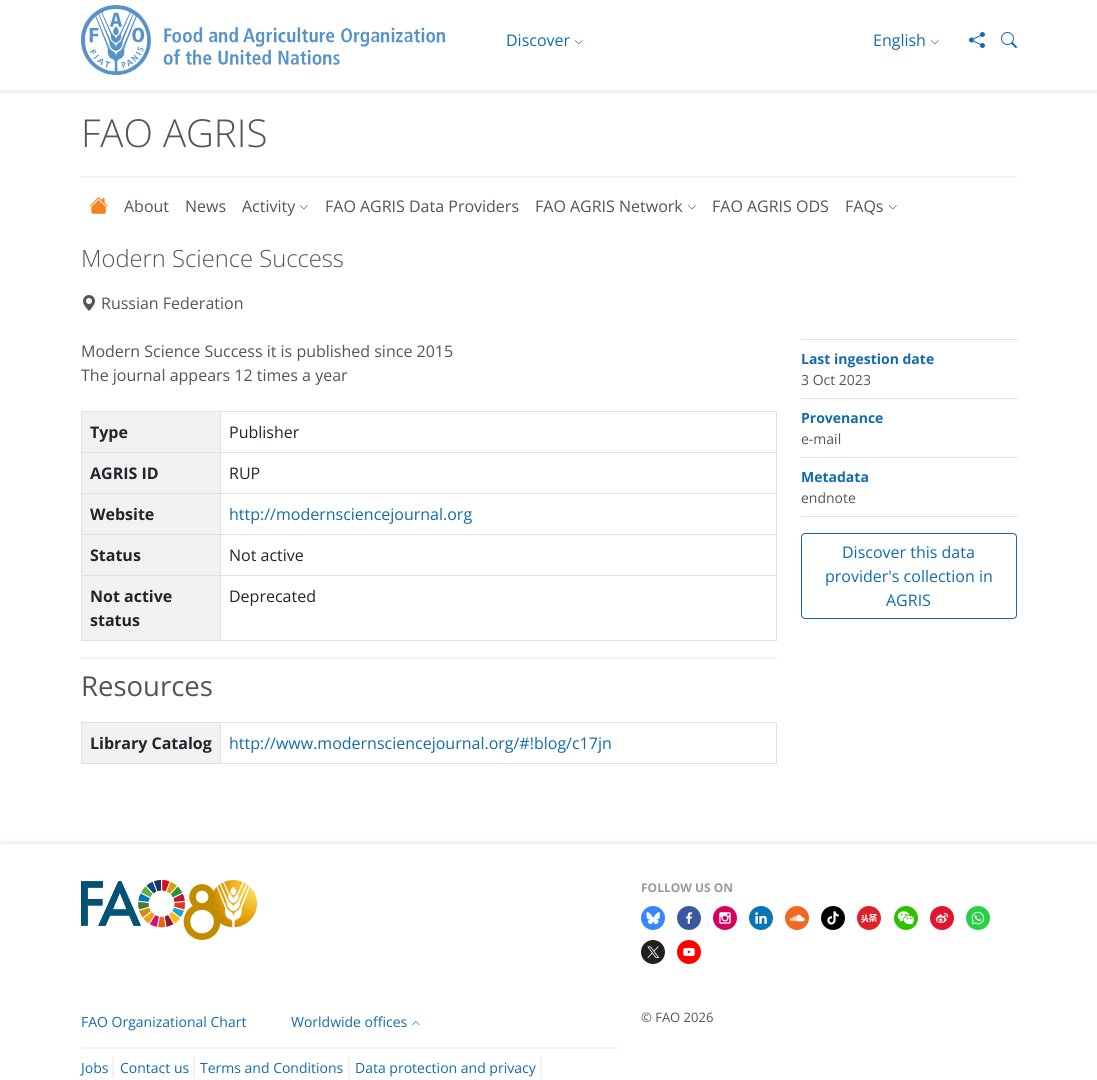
#include <cairo.h>
#include <math.h>
#include <stddef.h>

static cairo_t *ctx;

static void use_color(int r, int g, int b) {
    cairo_set_source_rgb(ctx, r / 255.0, g / 255.0, b / 255.0);
}

static void round_rect(double x, double y, double w, double h, double r) {
    cairo_new_sub_path(ctx);
    cairo_arc(ctx, x + w - r, y + h - r, r, 0, M_PI / 2);
    cairo_arc(ctx, x + r, y + h - r, r, M_PI / 2, M_PI);
    cairo_arc(ctx, x + r, y + r, r, M_PI, 1.5 * M_PI);
    cairo_arc(ctx, x + w - r, y + r, r, 1.5 * M_PI, 2 * M_PI);
    cairo_close_path(ctx);
}

static void shadow(double x, double y, double w, double h, double r, double blur, double alpha) {
    cairo_push_group_with_content(ctx, CAIRO_CONTENT_ALPHA);
    cairo_set_operator(ctx, CAIRO_OPERATOR_SOURCE);
    for (int i = 15; i >= -15 && fmin(w, h) + blur * i / 3 > 0; i -= 2) {
        double e = blur * i / 6;
        cairo_set_source_rgba(ctx, 0, 0, 0, alpha * erfc((i - 1) / 8.5) / 2);
        round_rect(x - e, y - e, w + 2 * e, h + 2 * e, fmax(0, fmin(r + e + blur * .6, fmin(w, h) / 2 + e)));
        cairo_fill(ctx);
    }
    cairo_pattern_t *soft = cairo_pop_group(ctx);
    cairo_mask(ctx, soft);
    cairo_pattern_destroy(soft);
}

static void picture(const char *path, double x, double y, double w, double h) {
    cairo_surface_t *image = cairo_image_surface_create_from_png(path);
    cairo_save(ctx);
    cairo_set_source_surface(ctx, image, x, y);
    cairo_rectangle(ctx, x, y, w, h);
    cairo_fill(ctx);
    cairo_restore(ctx);
    cairo_surface_destroy(image);
}

int main(void) {
    cairo_surface_t *surface = cairo_image_surface_create(CAIRO_FORMAT_RGB24, 1097, 1080);
    ctx = cairo_create(surface);
    cairo_font_options_t *options = cairo_font_options_create();
    cairo_font_options_set_hint_metrics(options, CAIRO_HINT_METRICS_OFF);
    cairo_font_options_set_hint_style(options, CAIRO_HINT_STYLE_NONE);
    cairo_set_font_options(ctx, options);
    cairo_set_miter_limit(ctx, 4);
    use_color(255, 255, 255);
    cairo_paint(ctx);
    cairo_save(ctx);
    cairo_rectangle(ctx, 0, 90, 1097, 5);
    cairo_clip(ctx);
    use_color(0, 0, 0);
    shadow(0, -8, 1097, 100, 0, 3, 0.1);
    cairo_restore(ctx);
    picture("img1.png", 81, 5, 364, 70);
    cairo_select_font_face(ctx, "Open Sans", CAIRO_FONT_SLANT_NORMAL, CAIRO_FONT_WEIGHT_NORMAL);
    cairo_set_font_size(ctx, 16);
    use_color(17, 107, 172);
    cairo_move_to(ctx, 506, 46);
    cairo_show_text(ctx, "Discover");
    picture("img2.png", 574, 40, 9, 5);
    cairo_move_to(ctx, 873, 46);
    cairo_show_text(ctx, "English");
    picture("img2.png", 930, 40, 9, 5);
    picture("img3.png", 969, 32, 16, 16);
    picture("img4.png", 1001, 32, 16, 16);
    use_color(242, 242, 242);
    cairo_rectangle(ctx, 81, 176, 936, 2);
    cairo_fill(ctx);
    cairo_select_font_face(ctx, "Open Sans Light", CAIRO_FONT_SLANT_NORMAL, CAIRO_FONT_WEIGHT_NORMAL);
    cairo_set_font_size(ctx, 38.5);
    use_color(84, 84, 84);
    cairo_move_to(ctx, 81, 147);
    cairo_show_text(ctx, "FAO AGRIS");
    picture("img5.png", 89, 197, 19, 17);
    cairo_select_font_face(ctx, "Open Sans", CAIRO_FONT_SLANT_NORMAL, CAIRO_FONT_WEIGHT_NORMAL);
    cairo_set_font_size(ctx, 16);
    cairo_move_to(ctx, 124, 212);
    cairo_show_text(ctx, "About");
    cairo_move_to(ctx, 185, 212);
    cairo_show_text(ctx, "News");
    cairo_move_to(ctx, 242, 212);
    cairo_show_text(ctx, "Activity");
    picture("img6.png", 299, 205, 9, 5);
    cairo_move_to(ctx, 325, 212);
    cairo_show_text(ctx, "FAO AGRIS Data Providers");
    cairo_move_to(ctx, 535, 212);
    cairo_show_text(ctx, "FAO AGRIS Network");
    picture("img6.png", 687, 205, 9, 5);
    cairo_move_to(ctx, 712, 212);
    cairo_show_text(ctx, "FAO AGRIS ODS");
    cairo_move_to(ctx, 845, 212);
    cairo_show_text(ctx, "FAQs");
    picture("img6.png", 888, 205, 9, 5);
    cairo_select_font_face(ctx, "Open Sans Light", CAIRO_FONT_SLANT_NORMAL, CAIRO_FONT_WEIGHT_NORMAL);
    cairo_set_font_size(ctx, 23.75);
    cairo_move_to(ctx, 81, 267);
    cairo_show_text(ctx, "Modern Science Success");
    picture("img7.png", 83, 295, 12, 16);
    cairo_select_font_face(ctx, "Open Sans", CAIRO_FONT_SLANT_NORMAL, CAIRO_FONT_WEIGHT_NORMAL);
    cairo_set_font_size(ctx, 16);
    cairo_move_to(ctx, 101, 309);
    cairo_show_text(ctx, "Russian Federation");
    cairo_move_to(ctx, 81, 357);
    cairo_show_text(ctx, "Modern Science Success it is published since 2015");
    cairo_move_to(ctx, 81, 381);
    cairo_show_text(ctx, "The journal appears 12 times a year");
    use_color(222, 226, 230);
    cairo_rectangle(ctx, 81, 411, 696, 1);
    cairo_fill(ctx);
    use_color(242, 242, 242);
    cairo_rectangle(ctx, 82, 412, 138, 40);
    cairo_fill(ctx);
    cairo_select_font_face(ctx, "Open Sans", CAIRO_FONT_SLANT_NORMAL, CAIRO_FONT_WEIGHT_BOLD);
    use_color(33, 37, 41);
    cairo_move_to(ctx, 90, 438);
    cairo_show_text(ctx, "Type");
    cairo_select_font_face(ctx, "Open Sans", CAIRO_FONT_SLANT_NORMAL, CAIRO_FONT_WEIGHT_NORMAL);
    cairo_move_to(ctx, 229, 438);
    cairo_show_text(ctx, "Publisher");
    use_color(222, 226, 230);
    cairo_rectangle(ctx, 81, 452, 696, 1);
    cairo_fill(ctx);
    use_color(242, 242, 242);
    cairo_rectangle(ctx, 82, 453, 138, 40);
    cairo_fill(ctx);
    cairo_select_font_face(ctx, "Open Sans", CAIRO_FONT_SLANT_NORMAL, CAIRO_FONT_WEIGHT_BOLD);
    use_color(33, 37, 41);
    cairo_move_to(ctx, 90, 479);
    cairo_show_text(ctx, "AGRIS ID");
    cairo_select_font_face(ctx, "Open Sans", CAIRO_FONT_SLANT_NORMAL, CAIRO_FONT_WEIGHT_NORMAL);
    cairo_move_to(ctx, 229, 479);
    cairo_show_text(ctx, "RUP");
    use_color(222, 226, 230);
    cairo_rectangle(ctx, 81, 493, 696, 1);
    cairo_fill(ctx);
    use_color(242, 242, 242);
    cairo_rectangle(ctx, 82, 494, 138, 40);
    cairo_fill(ctx);
    cairo_select_font_face(ctx, "Open Sans", CAIRO_FONT_SLANT_NORMAL, CAIRO_FONT_WEIGHT_BOLD);
    use_color(33, 37, 41);
    cairo_move_to(ctx, 90, 520);
    cairo_show_text(ctx, "Website");
    cairo_select_font_face(ctx, "Open Sans", CAIRO_FONT_SLANT_NORMAL, CAIRO_FONT_WEIGHT_NORMAL);
    use_color(17, 107, 172);
    cairo_move_to(ctx, 229, 520);
    cairo_show_text(ctx, "http://modernsciencejournal.org");
    use_color(222, 226, 230);
    cairo_rectangle(ctx, 81, 534, 696, 1);
    cairo_fill(ctx);
    use_color(242, 242, 242);
    cairo_rectangle(ctx, 82, 535, 138, 40);
    cairo_fill(ctx);
    cairo_select_font_face(ctx, "Open Sans", CAIRO_FONT_SLANT_NORMAL, CAIRO_FONT_WEIGHT_BOLD);
    use_color(33, 37, 41);
    cairo_move_to(ctx, 90, 561);
    cairo_show_text(ctx, "Status");
    cairo_select_font_face(ctx, "Open Sans", CAIRO_FONT_SLANT_NORMAL, CAIRO_FONT_WEIGHT_NORMAL);
    cairo_move_to(ctx, 229, 561);
    cairo_show_text(ctx, "Not active");
    use_color(222, 226, 230);
    cairo_rectangle(ctx, 81, 575, 696, 1);
    cairo_fill(ctx);
    cairo_rectangle(ctx, 81, 640, 696, 1);
    cairo_fill(ctx);
    use_color(242, 242, 242);
    cairo_rectangle(ctx, 82, 576, 138, 64);
    cairo_fill(ctx);
    use_color(222, 226, 230);
    cairo_rectangle(ctx, 81, 411, 1, 230);
    cairo_fill(ctx);
    cairo_select_font_face(ctx, "Open Sans", CAIRO_FONT_SLANT_NORMAL, CAIRO_FONT_WEIGHT_BOLD);
    use_color(33, 37, 41);
    cairo_move_to(ctx, 90, 602);
    cairo_show_text(ctx, "Not active");
    cairo_move_to(ctx, 90, 626);
    cairo_show_text(ctx, "status");
    use_color(222, 226, 230);
    cairo_rectangle(ctx, 776, 411, 1, 230);
    cairo_fill(ctx);
    cairo_rectangle(ctx, 220, 411, 1, 230);
    cairo_fill(ctx);
    cairo_select_font_face(ctx, "Open Sans", CAIRO_FONT_SLANT_NORMAL, CAIRO_FONT_WEIGHT_NORMAL);
    use_color(33, 37, 41);
    cairo_move_to(ctx, 229, 602);
    cairo_show_text(ctx, "Deprecated");
    use_color(242, 242, 242);
    cairo_rectangle(ctx, 81, 657, 696, 2);
    cairo_fill(ctx);
    cairo_set_font_size(ctx, 27.5);
    use_color(84, 84, 84);
    cairo_move_to(ctx, 81, 696);
    cairo_show_text(ctx, "Resources");
    use_color(222, 226, 230);
    cairo_rectangle(ctx, 81, 722, 696, 1);
    cairo_fill(ctx);
    cairo_rectangle(ctx, 81, 763, 696, 1);
    cairo_fill(ctx);
    use_color(242, 242, 242);
    cairo_rectangle(ctx, 82, 723, 138, 40);
    cairo_fill(ctx);
    use_color(222, 226, 230);
    cairo_rectangle(ctx, 81, 722, 1, 42);
    cairo_fill(ctx);
    cairo_select_font_face(ctx, "Open Sans", CAIRO_FONT_SLANT_NORMAL, CAIRO_FONT_WEIGHT_BOLD);
    cairo_set_font_size(ctx, 16);
    use_color(33, 37, 41);
    cairo_move_to(ctx, 90, 749);
    cairo_show_text(ctx, "Library Catalog");
    use_color(222, 226, 230);
    cairo_rectangle(ctx, 776, 722, 1, 42);
    cairo_fill(ctx);
    cairo_rectangle(ctx, 220, 722, 1, 42);
    cairo_fill(ctx);
    cairo_select_font_face(ctx, "Open Sans", CAIRO_FONT_SLANT_NORMAL, CAIRO_FONT_WEIGHT_NORMAL);
    use_color(17, 107, 172);
    cairo_move_to(ctx, 229, 749);
    cairo_show_text(ctx, "http://www.modernsciencejournal.org/#!blog/c17jn");
    use_color(222, 226, 230);
    cairo_rectangle(ctx, 801, 339, 216, 1);
    cairo_fill(ctx);
    cairo_select_font_face(ctx, "Open Sans", CAIRO_FONT_SLANT_NORMAL, CAIRO_FONT_WEIGHT_BOLD);
    cairo_set_font_size(ctx, 14);
    use_color(17, 107, 172);
    cairo_move_to(ctx, 801, 364);
    cairo_show_text(ctx, "Last ingestion date");
    cairo_select_font_face(ctx, "Open Sans", CAIRO_FONT_SLANT_NORMAL, CAIRO_FONT_WEIGHT_NORMAL);
    use_color(84, 84, 84);
    cairo_move_to(ctx, 801, 385);
    cairo_show_text(ctx, "3 Oct 2023");
    use_color(222, 226, 230);
    cairo_rectangle(ctx, 801, 398, 216, 1);
    cairo_fill(ctx);
    cairo_select_font_face(ctx, "Open Sans", CAIRO_FONT_SLANT_NORMAL, CAIRO_FONT_WEIGHT_BOLD);
    use_color(17, 107, 172);
    cairo_move_to(ctx, 801, 423);
    cairo_show_text(ctx, "Provenance");
    cairo_select_font_face(ctx, "Open Sans", CAIRO_FONT_SLANT_NORMAL, CAIRO_FONT_WEIGHT_NORMAL);
    use_color(84, 84, 84);
    cairo_move_to(ctx, 801, 444);
    cairo_show_text(ctx, "e-mail");
    use_color(222, 226, 230);
    cairo_rectangle(ctx, 801, 457, 216, 1);
    cairo_fill(ctx);
    cairo_select_font_face(ctx, "Open Sans", CAIRO_FONT_SLANT_NORMAL, CAIRO_FONT_WEIGHT_BOLD);
    use_color(17, 107, 172);
    cairo_move_to(ctx, 801, 482);
    cairo_show_text(ctx, "Metadata");
    cairo_select_font_face(ctx, "Open Sans", CAIRO_FONT_SLANT_NORMAL, CAIRO_FONT_WEIGHT_NORMAL);
    use_color(84, 84, 84);
    cairo_move_to(ctx, 801, 503);
    cairo_show_text(ctx, "endnote");
    use_color(222, 226, 230);
    cairo_rectangle(ctx, 801, 516, 216, 1);
    cairo_fill(ctx);
    round_rect(801.5, 533.5, 215, 85, 3.5);
    use_color(17, 107, 172);
    cairo_set_line_width(ctx, 1);
    cairo_stroke(ctx);
    cairo_set_font_size(ctx, 16);
    cairo_move_to(ctx, 842, 558);
    cairo_show_text(ctx, "Discover this data");
    cairo_move_to(ctx, 825, 582);
    cairo_show_text(ctx, "provider's collection in");
    cairo_move_to(ctx, 886, 606);
    cairo_show_text(ctx, "AGRIS");
    cairo_save(ctx);
    cairo_rectangle(ctx, 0, 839, 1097, 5);
    cairo_clip(ctx);
    use_color(0, 0, 0);
    shadow(0, 842, 1097, 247, 0, 3, 0.1);
    cairo_restore(ctx);
    picture("img8.png", 81, 880, 176, 60);
    cairo_select_font_face(ctx, "Open Sans", CAIRO_FONT_SLANT_NORMAL, CAIRO_FONT_WEIGHT_BOLD);
    cairo_set_font_size(ctx, 12);
    use_color(153, 153, 153);
    cairo_move_to(ctx, 641, 892);
    cairo_show_text(ctx, "FOLLOW US ON");
    picture("img9.png", 641, 906, 24, 24);
    picture("img10.png", 677, 906, 24, 24);
    picture("img11.png", 713, 906, 24, 24);
    picture("img12.png", 749, 906, 24, 24);
    picture("img13.png", 785, 906, 24, 24);
    picture("img14.png", 821, 906, 24, 24);
    picture("img15.png", 857, 906, 24, 24);
    picture("img16.png", 894, 906, 24, 24);
    picture("img17.png", 930, 906, 24, 24);
    picture("img18.png", 966, 906, 24, 24);
    picture("img19.png", 641, 940, 24, 24);
    picture("img20.png", 677, 940, 24, 24);
    cairo_select_font_face(ctx, "Open Sans", CAIRO_FONT_SLANT_NORMAL, CAIRO_FONT_WEIGHT_NORMAL);
    cairo_set_font_size(ctx, 14);
    use_color(17, 107, 172);
    cairo_move_to(ctx, 81, 1027);
    cairo_show_text(ctx, "FAO Organizational Chart");
    cairo_move_to(ctx, 291, 1027);
    cairo_show_text(ctx, "Worldwide offices");
    picture("img21.png", 412, 1021, 8, 5);
    use_color(242, 242, 242);
    cairo_rectangle(ctx, 81, 1047, 536, 2);
    cairo_fill(ctx);
    use_color(17, 107, 172);
    cairo_move_to(ctx, 81, 1073);
    cairo_show_text(ctx, "Jobs");
    use_color(242, 242, 242);
    cairo_rectangle(ctx, 112, 1057, 2, 21);
    cairo_fill(ctx);
    use_color(17, 107, 172);
    cairo_move_to(ctx, 120, 1073);
    cairo_show_text(ctx, "Contact us");
    use_color(242, 242, 242);
    cairo_rectangle(ctx, 193, 1057, 2, 21);
    cairo_fill(ctx);
    use_color(17, 107, 172);
    cairo_move_to(ctx, 200, 1073);
    cairo_show_text(ctx, "Terms and Conditions");
    use_color(242, 242, 242);
    cairo_rectangle(ctx, 348, 1057, 2, 21);
    cairo_fill(ctx);
    use_color(17, 107, 172);
    cairo_move_to(ctx, 355, 1073);
    cairo_show_text(ctx, "Data protection and privacy");
    use_color(242, 242, 242);
    cairo_rectangle(ctx, 540, 1057, 2, 21);
    cairo_fill(ctx);
    cairo_rectangle(ctx, 154, 1078, 2, 2);
    cairo_fill(ctx);
    cairo_rectangle(ctx, 289, 1078, 2, 2);
    cairo_fill(ctx);
    cairo_set_font_size(ctx, 13);
    use_color(84, 84, 84);
    cairo_move_to(ctx, 641, 1022);
    cairo_show_text(ctx, "© FAO 2026");
    cairo_surface_write_to_png(surface, "result.png");
    cairo_font_options_destroy(options);
    cairo_destroy(ctx);
    cairo_surface_destroy(surface);
    return 0;
}
